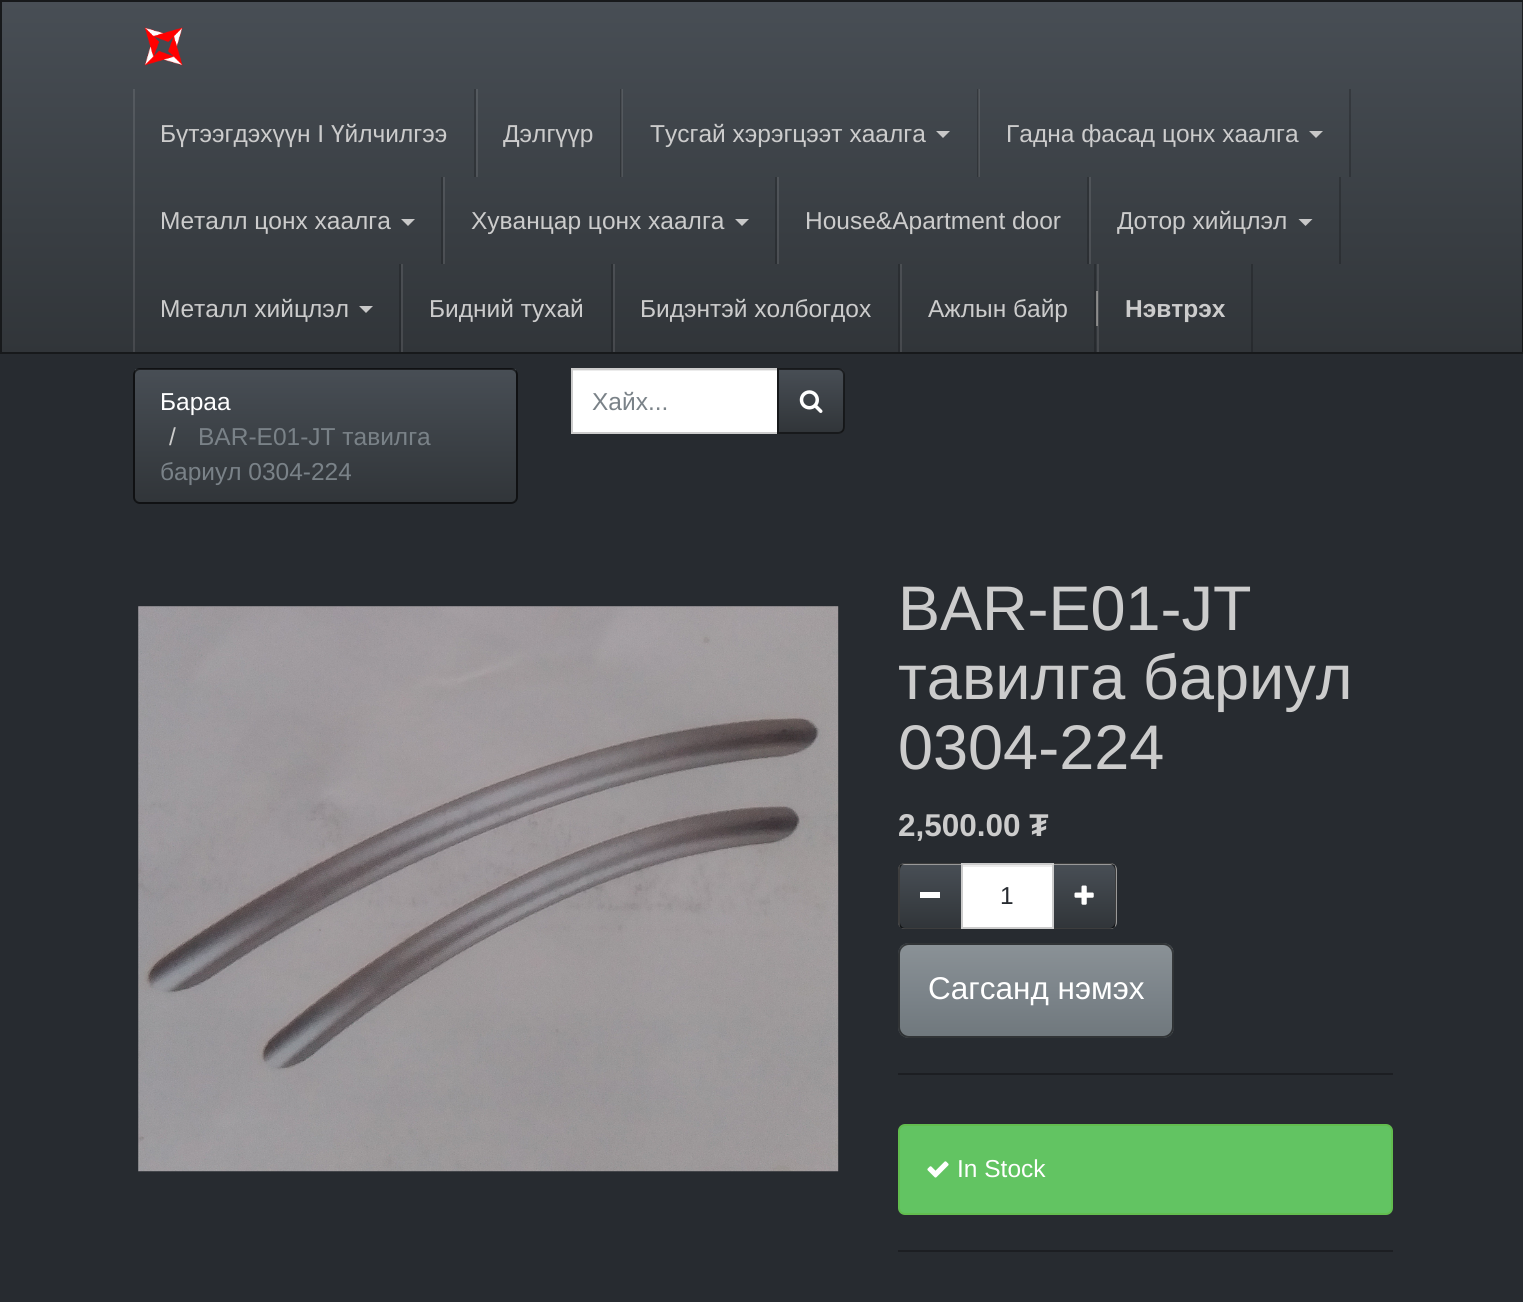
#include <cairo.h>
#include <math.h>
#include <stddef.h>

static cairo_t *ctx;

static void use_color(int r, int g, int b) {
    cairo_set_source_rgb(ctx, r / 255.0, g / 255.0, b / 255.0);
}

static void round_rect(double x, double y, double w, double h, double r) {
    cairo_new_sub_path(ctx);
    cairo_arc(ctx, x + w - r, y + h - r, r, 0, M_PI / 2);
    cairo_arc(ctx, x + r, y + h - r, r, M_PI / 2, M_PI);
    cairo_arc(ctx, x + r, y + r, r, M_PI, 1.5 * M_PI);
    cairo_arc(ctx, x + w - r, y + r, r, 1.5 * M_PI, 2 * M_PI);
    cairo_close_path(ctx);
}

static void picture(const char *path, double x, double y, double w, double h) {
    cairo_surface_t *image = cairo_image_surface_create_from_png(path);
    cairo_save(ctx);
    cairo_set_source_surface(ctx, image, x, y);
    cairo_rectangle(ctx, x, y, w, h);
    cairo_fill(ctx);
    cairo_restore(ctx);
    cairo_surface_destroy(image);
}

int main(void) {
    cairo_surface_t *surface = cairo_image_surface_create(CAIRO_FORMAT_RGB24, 1523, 1302);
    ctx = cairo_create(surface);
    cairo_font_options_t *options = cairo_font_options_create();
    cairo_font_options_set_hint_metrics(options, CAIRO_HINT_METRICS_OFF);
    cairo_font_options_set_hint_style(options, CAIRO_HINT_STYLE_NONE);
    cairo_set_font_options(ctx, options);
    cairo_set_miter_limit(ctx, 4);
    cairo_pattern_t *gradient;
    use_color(39, 43, 48);
    cairo_paint(ctx);
    use_color(58, 63, 68);
    cairo_rectangle(ctx, 0, 0, 1523, 354);
    cairo_fill(ctx);
    gradient = cairo_pattern_create_linear(762, 1.7, 762, 352);
    cairo_pattern_add_color_stop_rgba(gradient, 0, 0.282, 0.306, 0.333, 1);
    cairo_pattern_add_color_stop_rgba(gradient, 0.6, 0.227, 0.247, 0.267, 1);
    cairo_pattern_add_color_stop_rgba(gradient, 1, 0.192, 0.208, 0.224, 1);
    cairo_set_source(ctx, gradient);
    cairo_pattern_destroy(gradient);
    cairo_rectangle(ctx, 2, 2, 1521, 350);
    cairo_fill(ctx);
    gradient = cairo_pattern_create_linear(762, 1.7, 762, 352);
    cairo_pattern_add_color_stop_rgba(gradient, 0, 0.353, 0.376, 0.4, 1);
    cairo_pattern_add_color_stop_rgba(gradient, 0.6, 0.306, 0.322, 0.341, 1);
    cairo_pattern_add_color_stop_rgba(gradient, 1, 0.275, 0.286, 0.302, 1);
    cairo_set_source(ctx, gradient);
    cairo_pattern_destroy(gradient);
    cairo_rectangle(ctx, 1097, 264, 2, 88);
    cairo_fill(ctx);
    gradient = cairo_pattern_create_linear(762, 1.7, 762, 352);
    cairo_pattern_add_color_stop_rgba(gradient, 0, 0.227, 0.243, 0.267, 1);
    cairo_pattern_add_color_stop_rgba(gradient, 0.6, 0.18, 0.196, 0.212, 1);
    cairo_pattern_add_color_stop_rgba(gradient, 1, 0.153, 0.165, 0.18, 1);
    cairo_set_source(ctx, gradient);
    cairo_pattern_destroy(gradient);
    cairo_rectangle(ctx, 1251, 264, 2, 88);
    cairo_fill(ctx);
    gradient = cairo_pattern_create_linear(762, 1.7, 762, 352);
    cairo_pattern_add_color_stop_rgba(gradient, 0, 0.353, 0.376, 0.4, 1);
    cairo_pattern_add_color_stop_rgba(gradient, 0.6, 0.306, 0.322, 0.341, 1);
    cairo_pattern_add_color_stop_rgba(gradient, 1, 0.275, 0.286, 0.302, 1);
    cairo_set_source(ctx, gradient);
    cairo_pattern_destroy(gradient);
    cairo_rectangle(ctx, 900, 264, 2, 88);
    cairo_fill(ctx);
    gradient = cairo_pattern_create_linear(762, 1.7, 762, 352);
    cairo_pattern_add_color_stop_rgba(gradient, 0, 0.227, 0.243, 0.267, 1);
    cairo_pattern_add_color_stop_rgba(gradient, 0.6, 0.18, 0.196, 0.212, 1);
    cairo_pattern_add_color_stop_rgba(gradient, 1, 0.153, 0.165, 0.18, 1);
    cairo_set_source(ctx, gradient);
    cairo_pattern_destroy(gradient);
    cairo_rectangle(ctx, 1094, 264, 2, 88);
    cairo_fill(ctx);
    gradient = cairo_pattern_create_linear(762, 1.7, 762, 352);
    cairo_pattern_add_color_stop_rgba(gradient, 0, 0.353, 0.376, 0.4, 1);
    cairo_pattern_add_color_stop_rgba(gradient, 0.6, 0.306, 0.322, 0.341, 1);
    cairo_pattern_add_color_stop_rgba(gradient, 1, 0.275, 0.286, 0.302, 1);
    cairo_set_source(ctx, gradient);
    cairo_pattern_destroy(gradient);
    cairo_rectangle(ctx, 613, 264, 2, 88);
    cairo_fill(ctx);
    gradient = cairo_pattern_create_linear(762, 1.7, 762, 352);
    cairo_pattern_add_color_stop_rgba(gradient, 0, 0.227, 0.243, 0.267, 1);
    cairo_pattern_add_color_stop_rgba(gradient, 0.6, 0.18, 0.196, 0.212, 1);
    cairo_pattern_add_color_stop_rgba(gradient, 1, 0.153, 0.165, 0.18, 1);
    cairo_set_source(ctx, gradient);
    cairo_pattern_destroy(gradient);
    cairo_rectangle(ctx, 898, 264, 2, 88);
    cairo_fill(ctx);
    gradient = cairo_pattern_create_linear(762, 1.7, 762, 352);
    cairo_pattern_add_color_stop_rgba(gradient, 0, 0.353, 0.376, 0.4, 1);
    cairo_pattern_add_color_stop_rgba(gradient, 0.6, 0.306, 0.322, 0.341, 1);
    cairo_pattern_add_color_stop_rgba(gradient, 1, 0.275, 0.286, 0.302, 1);
    cairo_set_source(ctx, gradient);
    cairo_pattern_destroy(gradient);
    cairo_rectangle(ctx, 401, 264, 2, 88);
    cairo_fill(ctx);
    gradient = cairo_pattern_create_linear(762, 1.7, 762, 352);
    cairo_pattern_add_color_stop_rgba(gradient, 0, 0.227, 0.243, 0.267, 1);
    cairo_pattern_add_color_stop_rgba(gradient, 0.6, 0.18, 0.196, 0.212, 1);
    cairo_pattern_add_color_stop_rgba(gradient, 1, 0.153, 0.165, 0.18, 1);
    cairo_set_source(ctx, gradient);
    cairo_pattern_destroy(gradient);
    cairo_rectangle(ctx, 611, 264, 2, 88);
    cairo_fill(ctx);
    gradient = cairo_pattern_create_linear(762, 1.7, 762, 352);
    cairo_pattern_add_color_stop_rgba(gradient, 0, 0.353, 0.376, 0.4, 1);
    cairo_pattern_add_color_stop_rgba(gradient, 0.6, 0.306, 0.322, 0.341, 1);
    cairo_pattern_add_color_stop_rgba(gradient, 1, 0.275, 0.286, 0.302, 1);
    cairo_set_source(ctx, gradient);
    cairo_pattern_destroy(gradient);
    cairo_rectangle(ctx, 133, 264, 2, 88);
    cairo_fill(ctx);
    gradient = cairo_pattern_create_linear(762, 1.7, 762, 352);
    cairo_pattern_add_color_stop_rgba(gradient, 0, 0.227, 0.243, 0.267, 1);
    cairo_pattern_add_color_stop_rgba(gradient, 0.6, 0.18, 0.196, 0.212, 1);
    cairo_pattern_add_color_stop_rgba(gradient, 1, 0.153, 0.165, 0.18, 1);
    cairo_set_source(ctx, gradient);
    cairo_pattern_destroy(gradient);
    cairo_rectangle(ctx, 399, 264, 2, 88);
    cairo_fill(ctx);
    gradient = cairo_pattern_create_linear(762, 1.7, 762, 352);
    cairo_pattern_add_color_stop_rgba(gradient, 0, 0.353, 0.376, 0.4, 1);
    cairo_pattern_add_color_stop_rgba(gradient, 0.6, 0.306, 0.322, 0.341, 1);
    cairo_pattern_add_color_stop_rgba(gradient, 1, 0.275, 0.286, 0.302, 1);
    cairo_set_source(ctx, gradient);
    cairo_pattern_destroy(gradient);
    cairo_rectangle(ctx, 1089, 177, 2, 87);
    cairo_fill(ctx);
    gradient = cairo_pattern_create_linear(762, 1.7, 762, 352);
    cairo_pattern_add_color_stop_rgba(gradient, 0, 0.227, 0.243, 0.267, 1);
    cairo_pattern_add_color_stop_rgba(gradient, 0.6, 0.18, 0.196, 0.212, 1);
    cairo_pattern_add_color_stop_rgba(gradient, 1, 0.153, 0.165, 0.18, 1);
    cairo_set_source(ctx, gradient);
    cairo_pattern_destroy(gradient);
    cairo_rectangle(ctx, 1339, 177, 2, 87);
    cairo_fill(ctx);
    gradient = cairo_pattern_create_linear(762, 1.7, 762, 352);
    cairo_pattern_add_color_stop_rgba(gradient, 0, 0.353, 0.376, 0.4, 1);
    cairo_pattern_add_color_stop_rgba(gradient, 0.6, 0.306, 0.322, 0.341, 1);
    cairo_pattern_add_color_stop_rgba(gradient, 1, 0.275, 0.286, 0.302, 1);
    cairo_set_source(ctx, gradient);
    cairo_pattern_destroy(gradient);
    cairo_rectangle(ctx, 777, 177, 2, 87);
    cairo_fill(ctx);
    gradient = cairo_pattern_create_linear(762, 1.7, 762, 352);
    cairo_pattern_add_color_stop_rgba(gradient, 0, 0.227, 0.243, 0.267, 1);
    cairo_pattern_add_color_stop_rgba(gradient, 0.6, 0.18, 0.196, 0.212, 1);
    cairo_pattern_add_color_stop_rgba(gradient, 1, 0.153, 0.165, 0.18, 1);
    cairo_set_source(ctx, gradient);
    cairo_pattern_destroy(gradient);
    cairo_rectangle(ctx, 1087, 177, 2, 87);
    cairo_fill(ctx);
    gradient = cairo_pattern_create_linear(762, 1.7, 762, 352);
    cairo_pattern_add_color_stop_rgba(gradient, 0, 0.353, 0.376, 0.4, 1);
    cairo_pattern_add_color_stop_rgba(gradient, 0.6, 0.306, 0.322, 0.341, 1);
    cairo_pattern_add_color_stop_rgba(gradient, 1, 0.275, 0.286, 0.302, 1);
    cairo_set_source(ctx, gradient);
    cairo_pattern_destroy(gradient);
    cairo_rectangle(ctx, 443, 177, 2, 87);
    cairo_fill(ctx);
    gradient = cairo_pattern_create_linear(762, 1.7, 762, 352);
    cairo_pattern_add_color_stop_rgba(gradient, 0, 0.227, 0.243, 0.267, 1);
    cairo_pattern_add_color_stop_rgba(gradient, 0.6, 0.18, 0.196, 0.212, 1);
    cairo_pattern_add_color_stop_rgba(gradient, 1, 0.153, 0.165, 0.18, 1);
    cairo_set_source(ctx, gradient);
    cairo_pattern_destroy(gradient);
    cairo_rectangle(ctx, 775, 177, 2, 87);
    cairo_fill(ctx);
    gradient = cairo_pattern_create_linear(762, 1.7, 762, 352);
    cairo_pattern_add_color_stop_rgba(gradient, 0, 0.353, 0.376, 0.4, 1);
    cairo_pattern_add_color_stop_rgba(gradient, 0.6, 0.306, 0.322, 0.341, 1);
    cairo_pattern_add_color_stop_rgba(gradient, 1, 0.275, 0.286, 0.302, 1);
    cairo_set_source(ctx, gradient);
    cairo_pattern_destroy(gradient);
    cairo_rectangle(ctx, 133, 177, 2, 87);
    cairo_fill(ctx);
    gradient = cairo_pattern_create_linear(762, 1.7, 762, 352);
    cairo_pattern_add_color_stop_rgba(gradient, 0, 0.227, 0.243, 0.267, 1);
    cairo_pattern_add_color_stop_rgba(gradient, 0.6, 0.18, 0.196, 0.212, 1);
    cairo_pattern_add_color_stop_rgba(gradient, 1, 0.153, 0.165, 0.18, 1);
    cairo_set_source(ctx, gradient);
    cairo_pattern_destroy(gradient);
    cairo_rectangle(ctx, 441, 177, 2, 87);
    cairo_fill(ctx);
    gradient = cairo_pattern_create_linear(762, 1.7, 762, 352);
    cairo_pattern_add_color_stop_rgba(gradient, 0, 0.353, 0.376, 0.4, 1);
    cairo_pattern_add_color_stop_rgba(gradient, 0.6, 0.306, 0.322, 0.341, 1);
    cairo_pattern_add_color_stop_rgba(gradient, 1, 0.275, 0.286, 0.302, 1);
    cairo_set_source(ctx, gradient);
    cairo_pattern_destroy(gradient);
    cairo_rectangle(ctx, 979, 89, 1, 88);
    cairo_fill(ctx);
    gradient = cairo_pattern_create_linear(762, 1.7, 762, 352);
    cairo_pattern_add_color_stop_rgba(gradient, 0, 0.227, 0.243, 0.267, 1);
    cairo_pattern_add_color_stop_rgba(gradient, 0.6, 0.18, 0.196, 0.212, 1);
    cairo_pattern_add_color_stop_rgba(gradient, 1, 0.153, 0.165, 0.18, 1);
    cairo_set_source(ctx, gradient);
    cairo_pattern_destroy(gradient);
    cairo_rectangle(ctx, 1349, 89, 2, 88);
    cairo_fill(ctx);
    gradient = cairo_pattern_create_linear(762, 1.7, 762, 352);
    cairo_pattern_add_color_stop_rgba(gradient, 0, 0.353, 0.376, 0.4, 1);
    cairo_pattern_add_color_stop_rgba(gradient, 0.6, 0.306, 0.322, 0.341, 1);
    cairo_pattern_add_color_stop_rgba(gradient, 1, 0.275, 0.286, 0.302, 1);
    cairo_set_source(ctx, gradient);
    cairo_pattern_destroy(gradient);
    cairo_rectangle(ctx, 622, 89, 1, 88);
    cairo_fill(ctx);
    gradient = cairo_pattern_create_linear(762, 1.7, 762, 352);
    cairo_pattern_add_color_stop_rgba(gradient, 0, 0.227, 0.243, 0.267, 1);
    cairo_pattern_add_color_stop_rgba(gradient, 0.6, 0.18, 0.196, 0.212, 1);
    cairo_pattern_add_color_stop_rgba(gradient, 1, 0.153, 0.165, 0.18, 1);
    cairo_set_source(ctx, gradient);
    cairo_pattern_destroy(gradient);
    cairo_rectangle(ctx, 977, 89, 1, 88);
    cairo_fill(ctx);
    gradient = cairo_pattern_create_linear(762, 1.7, 762, 352);
    cairo_pattern_add_color_stop_rgba(gradient, 0, 0.306, 0.318, 0.341, 1);
    cairo_pattern_add_color_stop_rgba(gradient, 0.6, 0.263, 0.278, 0.29, 1);
    cairo_pattern_add_color_stop_rgba(gradient, 1, 0.239, 0.247, 0.263, 1);
    cairo_set_source(ctx, gradient);
    cairo_pattern_destroy(gradient);
    cairo_rectangle(ctx, 978, 89, 1, 88);
    cairo_fill(ctx);
    gradient = cairo_pattern_create_linear(762, 1.7, 762, 352);
    cairo_pattern_add_color_stop_rgba(gradient, 0, 0.353, 0.376, 0.4, 1);
    cairo_pattern_add_color_stop_rgba(gradient, 0.6, 0.306, 0.322, 0.341, 1);
    cairo_pattern_add_color_stop_rgba(gradient, 1, 0.275, 0.286, 0.302, 1);
    cairo_set_source(ctx, gradient);
    cairo_pattern_destroy(gradient);
    cairo_rectangle(ctx, 476, 89, 2, 88);
    cairo_fill(ctx);
    gradient = cairo_pattern_create_linear(762, 1.7, 762, 352);
    cairo_pattern_add_color_stop_rgba(gradient, 0, 0.227, 0.243, 0.267, 1);
    cairo_pattern_add_color_stop_rgba(gradient, 0.6, 0.18, 0.196, 0.212, 1);
    cairo_pattern_add_color_stop_rgba(gradient, 1, 0.153, 0.165, 0.18, 1);
    cairo_set_source(ctx, gradient);
    cairo_pattern_destroy(gradient);
    cairo_rectangle(ctx, 620, 89, 1, 88);
    cairo_fill(ctx);
    gradient = cairo_pattern_create_linear(762, 1.7, 762, 352);
    cairo_pattern_add_color_stop_rgba(gradient, 0, 0.306, 0.318, 0.341, 1);
    cairo_pattern_add_color_stop_rgba(gradient, 0.6, 0.263, 0.278, 0.29, 1);
    cairo_pattern_add_color_stop_rgba(gradient, 1, 0.239, 0.247, 0.263, 1);
    cairo_set_source(ctx, gradient);
    cairo_pattern_destroy(gradient);
    cairo_rectangle(ctx, 621, 89, 1, 88);
    cairo_fill(ctx);
    gradient = cairo_pattern_create_linear(762, 1.7, 762, 352);
    cairo_pattern_add_color_stop_rgba(gradient, 0, 0.353, 0.376, 0.4, 1);
    cairo_pattern_add_color_stop_rgba(gradient, 0.6, 0.306, 0.322, 0.341, 1);
    cairo_pattern_add_color_stop_rgba(gradient, 1, 0.275, 0.286, 0.302, 1);
    cairo_set_source(ctx, gradient);
    cairo_pattern_destroy(gradient);
    cairo_rectangle(ctx, 133, 89, 2, 88);
    cairo_fill(ctx);
    gradient = cairo_pattern_create_linear(762, 1.7, 762, 352);
    cairo_pattern_add_color_stop_rgba(gradient, 0, 0.227, 0.243, 0.267, 1);
    cairo_pattern_add_color_stop_rgba(gradient, 0.6, 0.18, 0.196, 0.212, 1);
    cairo_pattern_add_color_stop_rgba(gradient, 1, 0.153, 0.165, 0.18, 1);
    cairo_set_source(ctx, gradient);
    cairo_pattern_destroy(gradient);
    cairo_rectangle(ctx, 474, 89, 2, 88);
    cairo_fill(ctx);
    cairo_rectangle(ctx, 1, 1, 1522, 352);
    cairo_set_source_rgba(ctx, 0, 0, 0, 0.6);
    cairo_stroke(ctx);
    picture("img1.png", 144, 27, 39, 39);
    cairo_select_font_face(ctx, "Liberation Sans", CAIRO_FONT_SLANT_NORMAL, CAIRO_FONT_WEIGHT_NORMAL);
    cairo_set_font_size(ctx, 24.5);
    use_color(204, 204, 204);
    cairo_move_to(ctx, 160, 142);
    cairo_show_text(ctx, "Бүтээгдэхүүн I Үйлчилгээ");
    cairo_move_to(ctx, 503, 142);
    cairo_show_text(ctx, "Дэлгүүр");
    cairo_move_to(ctx, 650, 142);
    cairo_show_text(ctx, "Тусгай хэрэгцээт хаалга");
    use_color(200, 200, 200);
    cairo_new_path(ctx);
    cairo_move_to(ctx, 936, 131);
    cairo_line_to(ctx, 950, 131);
    cairo_line_to(ctx, 943, 138);
    cairo_close_path(ctx);
    cairo_fill(ctx);
    use_color(204, 204, 204);
    cairo_move_to(ctx, 1006, 142);
    cairo_show_text(ctx, "Гадна фасад цонх хаалга");
    use_color(200, 200, 200);
    cairo_new_path(ctx);
    cairo_move_to(ctx, 1309, 131);
    cairo_line_to(ctx, 1323, 131);
    cairo_line_to(ctx, 1316, 138);
    cairo_close_path(ctx);
    cairo_fill(ctx);
    use_color(204, 204, 204);
    cairo_move_to(ctx, 160, 229);
    cairo_show_text(ctx, "Металл цонх хаалга");
    use_color(200, 200, 200);
    cairo_new_path(ctx);
    cairo_move_to(ctx, 401, 219);
    cairo_line_to(ctx, 415, 219);
    cairo_line_to(ctx, 408, 226);
    cairo_close_path(ctx);
    cairo_fill(ctx);
    use_color(204, 204, 204);
    cairo_move_to(ctx, 471, 229);
    cairo_show_text(ctx, "Хуванцар цонх хаалга");
    use_color(200, 200, 200);
    cairo_new_path(ctx);
    cairo_move_to(ctx, 735, 219);
    cairo_line_to(ctx, 749, 219);
    cairo_line_to(ctx, 742, 226);
    cairo_close_path(ctx);
    cairo_fill(ctx);
    use_color(204, 204, 204);
    cairo_move_to(ctx, 805, 229);
    cairo_show_text(ctx, "House&Apartment door");
    cairo_move_to(ctx, 1117, 229);
    cairo_show_text(ctx, "Дотор хийцлэл");
    use_color(200, 200, 200);
    cairo_new_path(ctx);
    cairo_move_to(ctx, 1298.5, 219);
    cairo_line_to(ctx, 1312.5, 219);
    cairo_line_to(ctx, 1305.5, 226);
    cairo_close_path(ctx);
    cairo_fill(ctx);
    use_color(204, 204, 204);
    cairo_move_to(ctx, 160, 317);
    cairo_show_text(ctx, "Металл хийцлэл");
    use_color(200, 200, 200);
    cairo_new_path(ctx);
    cairo_move_to(ctx, 359, 306);
    cairo_line_to(ctx, 373, 306);
    cairo_line_to(ctx, 366, 313);
    cairo_close_path(ctx);
    cairo_fill(ctx);
    use_color(204, 204, 204);
    cairo_move_to(ctx, 429, 317);
    cairo_show_text(ctx, "Бидний тухай");
    cairo_move_to(ctx, 640, 317);
    cairo_show_text(ctx, "Бидэнтэй холбогдох");
    cairo_move_to(ctx, 928, 317);
    cairo_show_text(ctx, "Ажлын байр");
    use_color(128, 128, 128);
    cairo_rectangle(ctx, 1096, 291, 1, 35);
    cairo_fill(ctx);
    use_color(141, 141, 141);
    cairo_rectangle(ctx, 1097, 291, 1, 35);
    cairo_fill(ctx);
    cairo_select_font_face(ctx, "Liberation Sans", CAIRO_FONT_SLANT_NORMAL, CAIRO_FONT_WEIGHT_BOLD);
    use_color(204, 204, 204);
    cairo_move_to(ctx, 1125, 317);
    cairo_show_text(ctx, "Нэвтрэх");
    gradient = cairo_pattern_create_linear(326, 369, 326, 502);
    cairo_pattern_add_color_stop_rgba(gradient, 0, 0.282, 0.306, 0.333, 1);
    cairo_pattern_add_color_stop_rgba(gradient, 0.6, 0.227, 0.247, 0.267, 1);
    cairo_pattern_add_color_stop_rgba(gradient, 1, 0.192, 0.208, 0.224, 1);
    cairo_set_source(ctx, gradient);
    cairo_pattern_destroy(gradient);
    cairo_rectangle(ctx, 135, 369, 381, 133);
    cairo_fill(ctx);
    round_rect(134, 369, 383, 134, 6);
    cairo_set_source_rgba(ctx, 0, 0, 0, 0.6);
    cairo_stroke(ctx);
    cairo_select_font_face(ctx, "Liberation Sans", CAIRO_FONT_SLANT_NORMAL, CAIRO_FONT_WEIGHT_NORMAL);
    use_color(255, 255, 255);
    cairo_move_to(ctx, 160, 410);
    cairo_show_text(ctx, "Бараа");
    use_color(204, 204, 204);
    cairo_move_to(ctx, 169, 445);
    cairo_show_text(ctx, "/");
    use_color(122, 130, 136);
    cairo_move_to(ctx, 198, 445);
    cairo_show_text(ctx, "BAR-E01-JT тавилга");
    cairo_move_to(ctx, 160, 480);
    cairo_show_text(ctx, "бариул 0304-224");
    use_color(255, 255, 255);
    cairo_rectangle(ctx, 573, 371, 204, 61);
    cairo_fill(ctx);
    use_color(236, 236, 236);
    cairo_rectangle(ctx, 572, 370, 205, 1);
    cairo_fill(ctx);
    cairo_rectangle(ctx, 572, 369, 206, 64);
    use_color(204, 204, 204);
    cairo_stroke(ctx);
    use_color(122, 130, 136);
    cairo_move_to(ctx, 592, 410);
    cairo_show_text(ctx, "Хайх...");
    use_color(58, 63, 68);
    cairo_new_path(ctx);
    cairo_move_to(ctx, 777, 368);
    cairo_line_to(ctx, 838, 368);
    cairo_curve_to(ctx, 842, 368, 845, 371, 845, 375);
    cairo_line_to(ctx, 845, 427);
    cairo_curve_to(ctx, 845, 431, 842, 434, 838, 434);
    cairo_line_to(ctx, 777, 434);
    cairo_close_path(ctx);
    cairo_fill(ctx);
    cairo_save(ctx);
    cairo_new_path(ctx);
    cairo_move_to(ctx, 777, 368);
    cairo_line_to(ctx, 838, 368);
    cairo_curve_to(ctx, 842, 368, 845, 371, 845, 375);
    cairo_line_to(ctx, 845, 427);
    cairo_curve_to(ctx, 845, 431, 842, 434, 838, 434);
    cairo_line_to(ctx, 777, 434);
    cairo_close_path(ctx);
    cairo_clip(ctx);
    gradient = cairo_pattern_create_linear(811, 369, 811, 432);
    cairo_pattern_add_color_stop_rgba(gradient, 0, 0.282, 0.306, 0.333, 1);
    cairo_pattern_add_color_stop_rgba(gradient, 0.6, 0.227, 0.247, 0.267, 1);
    cairo_pattern_add_color_stop_rgba(gradient, 1, 0.192, 0.208, 0.224, 1);
    cairo_set_source(ctx, gradient);
    cairo_pattern_destroy(gradient);
    cairo_rectangle(ctx, 779, 369, 65, 63);
    cairo_fill(ctx);
    cairo_restore(ctx);
    cairo_new_path(ctx);
    cairo_move_to(ctx, 778, 369);
    cairo_line_to(ctx, 838, 369);
    cairo_curve_to(ctx, 841.5, 369, 844, 371.5, 844, 375);
    cairo_line_to(ctx, 844, 427);
    cairo_curve_to(ctx, 844, 430.5, 841.5, 433, 838, 433);
    cairo_line_to(ctx, 778, 433);
    cairo_close_path(ctx);
    cairo_set_source_rgba(ctx, 0, 0, 0, 0.6);
    cairo_stroke(ctx);
    picture("img2.png", 799, 390, 24, 23);
    picture("img3.png", 138, 606, 701, 566);
    cairo_set_font_size(ctx, 63);
    use_color(204, 204, 204);
    cairo_move_to(ctx, 898, 630);
    cairo_show_text(ctx, "BAR-E01-JT");
    cairo_move_to(ctx, 898, 699);
    cairo_show_text(ctx, "тавилга бариул");
    cairo_move_to(ctx, 898, 769);
    cairo_show_text(ctx, "0304-224");
    cairo_select_font_face(ctx, "Liberation Sans", CAIRO_FONT_SLANT_NORMAL, CAIRO_FONT_WEIGHT_BOLD);
    cairo_set_font_size(ctx, 31.5);
    cairo_move_to(ctx, 898, 836);
    cairo_show_text(ctx, "2,500.00 ₮");
    use_color(153, 153, 153);
    cairo_new_path(ctx);
    cairo_move_to(ctx, 905, 863);
    cairo_line_to(ctx, 961, 863);
    cairo_line_to(ctx, 961, 929);
    cairo_line_to(ctx, 905, 929);
    cairo_curve_to(ctx, 901, 929, 898, 926, 898, 922);
    cairo_line_to(ctx, 898, 870);
    cairo_curve_to(ctx, 898, 866, 901, 863, 905, 863);
    cairo_close_path(ctx);
    cairo_fill(ctx);
    gradient = cairo_pattern_create_linear(930, 865, 930, 928);
    cairo_pattern_add_color_stop_rgba(gradient, 0, 0.282, 0.306, 0.333, 1);
    cairo_pattern_add_color_stop_rgba(gradient, 0.6, 0.227, 0.247, 0.267, 1);
    cairo_pattern_add_color_stop_rgba(gradient, 1, 0.192, 0.208, 0.224, 1);
    cairo_set_source(ctx, gradient);
    cairo_pattern_destroy(gradient);
    cairo_rectangle(ctx, 900, 865, 61, 63);
    cairo_fill(ctx);
    cairo_set_source_rgba(ctx, 0, 0, 0, 0.6);
    cairo_set_fill_rule(ctx, CAIRO_FILL_RULE_EVEN_ODD);
    cairo_new_path(ctx);
    cairo_move_to(ctx, 905, 863);
    cairo_line_to(ctx, 961, 863);
    cairo_line_to(ctx, 961, 929);
    cairo_line_to(ctx, 905, 929);
    cairo_curve_to(ctx, 901, 929, 898, 926, 898, 922);
    cairo_line_to(ctx, 898, 870);
    cairo_curve_to(ctx, 898, 866, 901, 863, 905, 863);
    cairo_close_path(ctx);
    cairo_move_to(ctx, 905, 864);
    cairo_line_to(ctx, 961, 864);
    cairo_line_to(ctx, 961, 928);
    cairo_line_to(ctx, 905, 928);
    cairo_curve_to(ctx, 902, 928, 900, 925, 900, 922);
    cairo_line_to(ctx, 900, 870);
    cairo_curve_to(ctx, 900, 867, 902, 864, 905, 864);
    cairo_close_path(ctx);
    cairo_fill(ctx);
    use_color(255, 255, 255);
    cairo_rectangle(ctx, 920, 892, 20, 6);
    cairo_fill(ctx);
    cairo_rectangle(ctx, 963, 867, 89, 60);
    cairo_fill(ctx);
    use_color(236, 236, 236);
    cairo_rectangle(ctx, 963, 865, 89, 2);
    cairo_fill(ctx);
    cairo_rectangle(ctx, 962, 864, 91, 64);
    use_color(204, 204, 204);
    cairo_stroke(ctx);
    cairo_select_font_face(ctx, "Liberation Sans", CAIRO_FONT_SLANT_NORMAL, CAIRO_FONT_WEIGHT_NORMAL);
    cairo_set_font_size(ctx, 24.5);
    use_color(39, 43, 48);
    cairo_move_to(ctx, 1000, 904);
    cairo_show_text(ctx, "1");
    use_color(153, 153, 153);
    cairo_new_path(ctx);
    cairo_move_to(ctx, 1054, 863);
    cairo_line_to(ctx, 1110, 863);
    cairo_curve_to(ctx, 1114, 863, 1117, 866, 1117, 870);
    cairo_line_to(ctx, 1117, 922);
    cairo_curve_to(ctx, 1117, 926, 1114, 929, 1110, 929);
    cairo_line_to(ctx, 1054, 929);
    cairo_close_path(ctx);
    cairo_fill(ctx);
    gradient = cairo_pattern_create_linear(1084, 865, 1084, 928);
    cairo_pattern_add_color_stop_rgba(gradient, 0, 0.282, 0.306, 0.333, 1);
    cairo_pattern_add_color_stop_rgba(gradient, 0.6, 0.227, 0.247, 0.267, 1);
    cairo_pattern_add_color_stop_rgba(gradient, 1, 0.192, 0.208, 0.224, 1);
    cairo_set_source(ctx, gradient);
    cairo_pattern_destroy(gradient);
    cairo_rectangle(ctx, 1054, 865, 61, 63);
    cairo_fill(ctx);
    cairo_set_source_rgba(ctx, 0, 0, 0, 0.6);
    cairo_new_path(ctx);
    cairo_move_to(ctx, 1054, 863);
    cairo_line_to(ctx, 1110, 863);
    cairo_curve_to(ctx, 1113, 863, 1116, 866, 1116, 870);
    cairo_line_to(ctx, 1116, 922);
    cairo_curve_to(ctx, 1116, 926, 1113, 929, 1110, 929);
    cairo_line_to(ctx, 1054, 929);
    cairo_close_path(ctx);
    cairo_move_to(ctx, 1054, 864);
    cairo_line_to(ctx, 1110, 864);
    cairo_curve_to(ctx, 1112, 864, 1115, 867, 1115, 870);
    cairo_line_to(ctx, 1115, 922);
    cairo_curve_to(ctx, 1115, 925, 1112, 928, 1110, 928);
    cairo_line_to(ctx, 1054, 928);
    cairo_close_path(ctx);
    cairo_fill(ctx);
    picture("img4.png", 1074, 885, 20, 20);
    use_color(122, 130, 136);
    round_rect(898, 943, 276, 95, 11);
    cairo_fill(ctx);
    cairo_save(ctx);
    cairo_set_fill_rule(ctx, CAIRO_FILL_RULE_WINDING);
    round_rect(898, 943, 276, 95, 11);
    cairo_clip(ctx);
    gradient = cairo_pattern_create_linear(1036, 945, 1036, 1036);
    cairo_pattern_add_color_stop_rgba(gradient, 0, 0.541, 0.569, 0.588, 1);
    cairo_pattern_add_color_stop_rgba(gradient, 0.6, 0.478, 0.51, 0.533, 1);
    cairo_pattern_add_color_stop_rgba(gradient, 1, 0.439, 0.471, 0.49, 1);
    cairo_set_source(ctx, gradient);
    cairo_pattern_destroy(gradient);
    cairo_rectangle(ctx, 900, 945, 273, 91);
    cairo_fill(ctx);
    cairo_restore(ctx);
    round_rect(899, 944, 274, 93, 10);
    cairo_set_source_rgba(ctx, 0, 0, 0, 0.6);
    cairo_stroke(ctx);
    cairo_set_font_size(ctx, 31.5);
    use_color(255, 255, 255);
    cairo_move_to(ctx, 928, 999);
    cairo_show_text(ctx, "Сагсанд нэмэх");
    use_color(28, 30, 34);
    cairo_rectangle(ctx, 898, 1073, 495, 2);
    cairo_fill(ctx);
    use_color(98, 196, 98);
    round_rect(899, 1125, 493, 89, 6);
    cairo_fill_preserve(ctx);
    use_color(98, 189, 79);
    cairo_stroke(ctx);
    picture("img5.png", 927, 1161, 22, 17);
    cairo_set_font_size(ctx, 24.5);
    use_color(255, 255, 255);
    cairo_move_to(ctx, 957, 1177);
    cairo_show_text(ctx, "In Stock");
    use_color(28, 30, 34);
    cairo_rectangle(ctx, 898, 1250, 495, 2);
    cairo_fill(ctx);
    cairo_surface_write_to_png(surface, "result.png");
    cairo_font_options_destroy(options);
    cairo_destroy(ctx);
    cairo_surface_destroy(surface);
    return 0;
}
